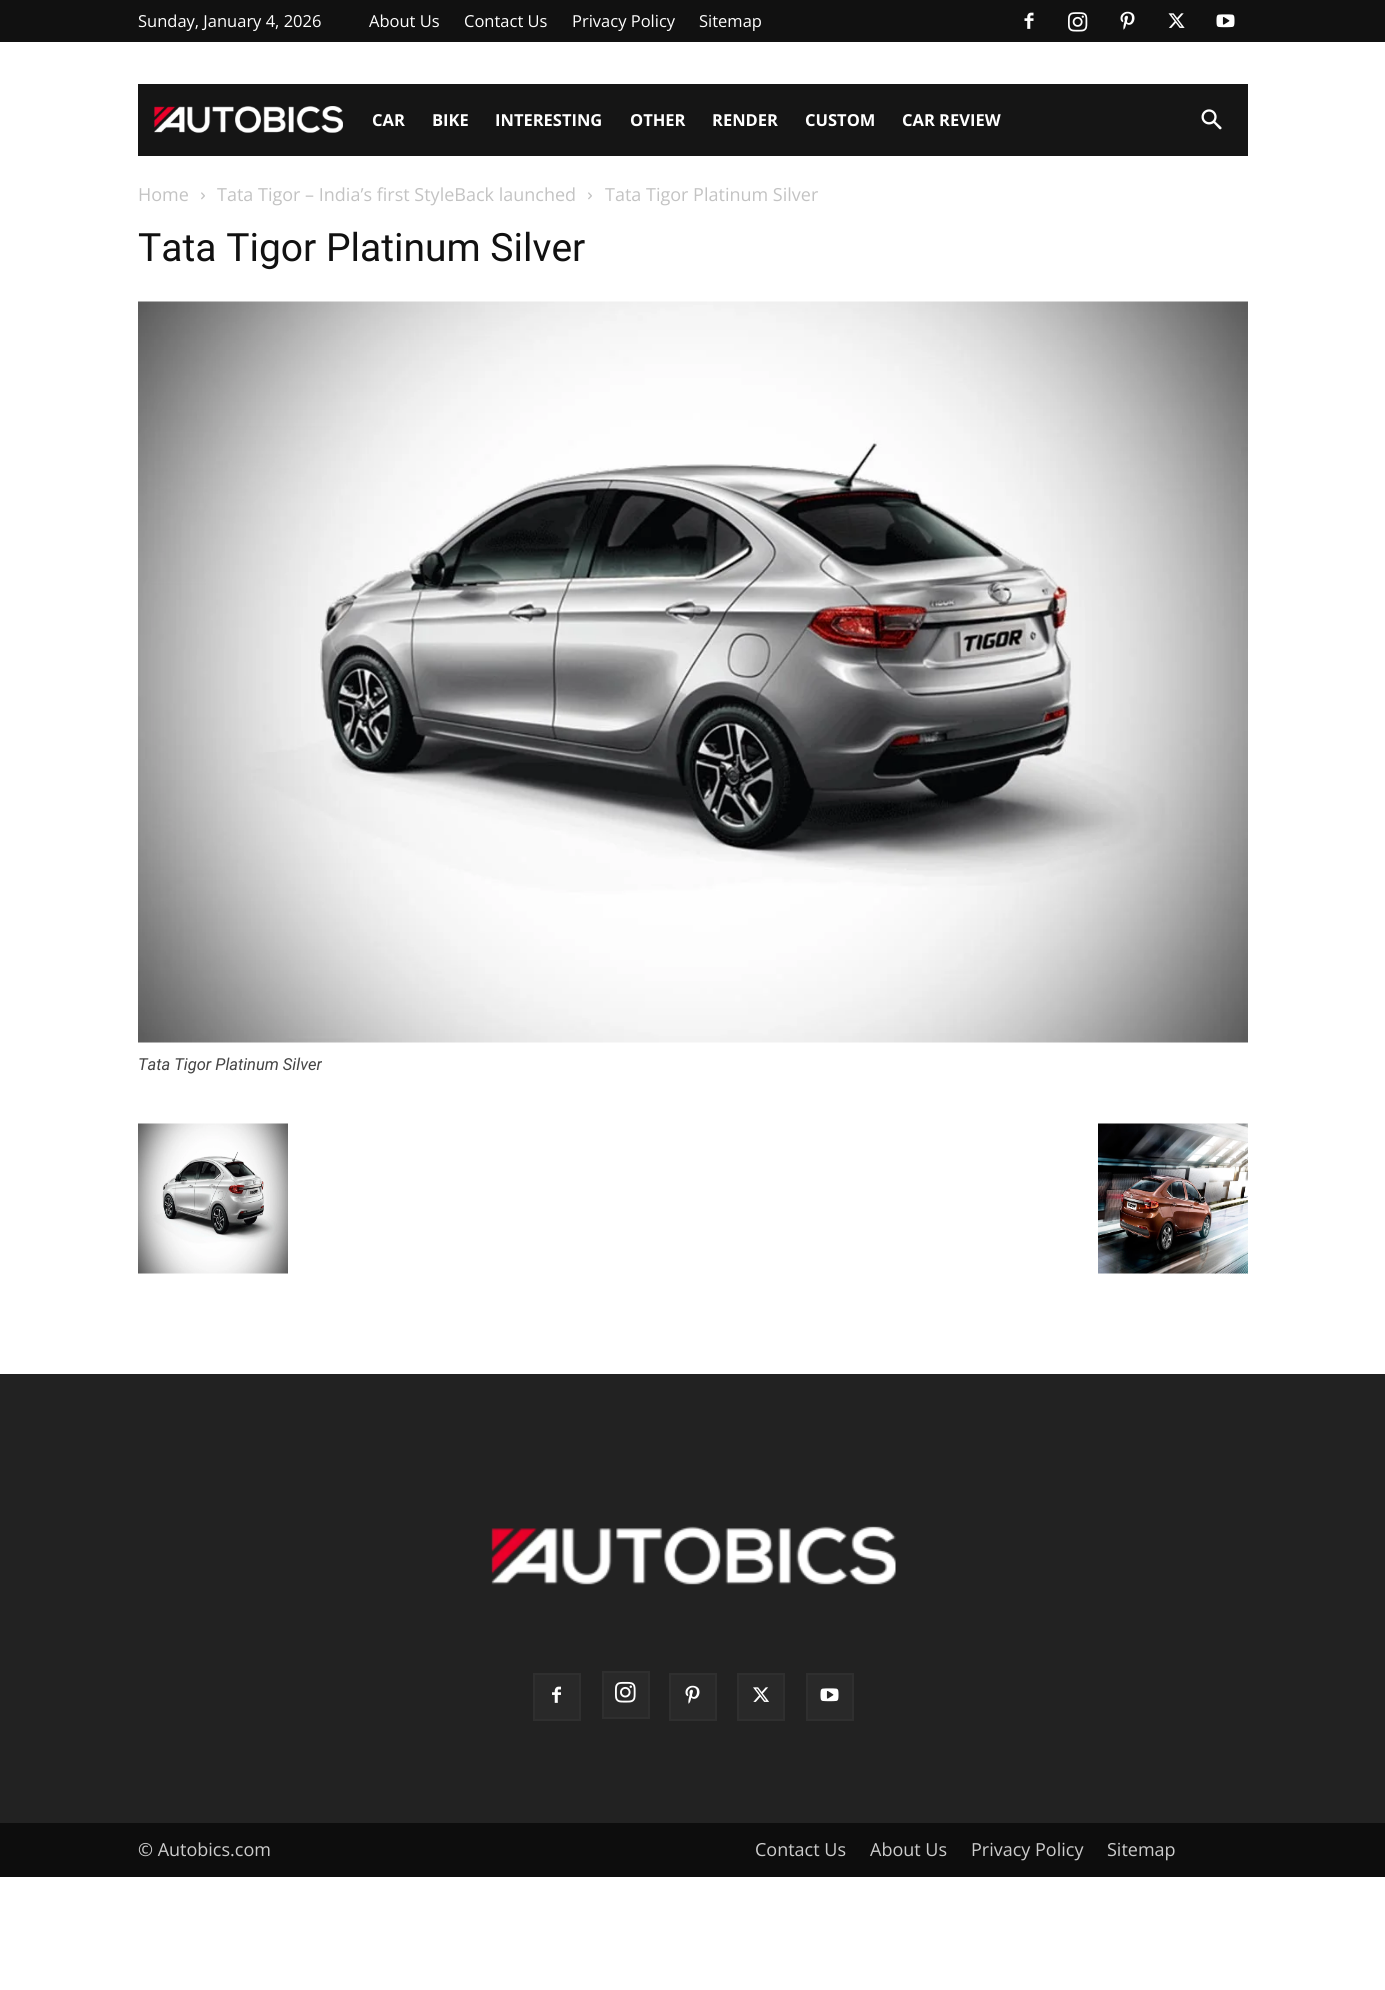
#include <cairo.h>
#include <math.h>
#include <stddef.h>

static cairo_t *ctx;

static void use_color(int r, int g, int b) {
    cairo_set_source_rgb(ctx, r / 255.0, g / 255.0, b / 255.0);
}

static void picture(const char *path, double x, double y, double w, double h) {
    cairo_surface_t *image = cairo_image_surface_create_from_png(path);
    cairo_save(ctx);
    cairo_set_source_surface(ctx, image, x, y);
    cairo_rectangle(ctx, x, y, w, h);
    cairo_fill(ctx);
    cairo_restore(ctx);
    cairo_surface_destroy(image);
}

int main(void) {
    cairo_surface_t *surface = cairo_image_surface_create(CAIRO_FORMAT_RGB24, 1385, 1990);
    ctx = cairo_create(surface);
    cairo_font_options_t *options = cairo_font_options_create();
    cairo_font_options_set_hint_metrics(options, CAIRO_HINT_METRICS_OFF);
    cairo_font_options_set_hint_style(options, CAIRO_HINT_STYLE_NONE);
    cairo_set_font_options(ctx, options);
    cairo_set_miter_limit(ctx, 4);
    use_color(255, 255, 255);
    cairo_paint(ctx);
    use_color(17, 17, 17);
    cairo_rectangle(ctx, 0, 0, 1385, 42);
    cairo_fill(ctx);
    cairo_select_font_face(ctx, "Open Sans", CAIRO_FONT_SLANT_NORMAL, CAIRO_FONT_WEIGHT_NORMAL);
    cairo_set_font_size(ctx, 16.5);
    use_color(255, 255, 255);
    cairo_move_to(ctx, 138, 27);
    cairo_show_text(ctx, "Sunday, January 4, 2026");
    cairo_move_to(ctx, 369, 27);
    cairo_show_text(ctx, "About Us");
    cairo_move_to(ctx, 464, 27);
    cairo_show_text(ctx, "Contact Us");
    cairo_move_to(ctx, 572, 27);
    cairo_show_text(ctx, "Privacy Policy");
    cairo_move_to(ctx, 699, 27);
    cairo_show_text(ctx, "Sitemap");
    picture("img1.png", 1024, 12, 10, 17);
    picture("img2.png", 1068, 12, 20, 20);
    picture("img3.png", 1120, 11, 15, 19);
    picture("img4.png", 1168, 13, 17, 15);
    picture("img5.png", 1216, 14, 19, 14);
    use_color(21, 21, 21);
    cairo_rectangle(ctx, 138, 84, 1110, 72);
    cairo_fill(ctx);
    picture("img6.png", 154, 106, 189, 27);
    cairo_select_font_face(ctx, "Open Sans", CAIRO_FONT_SLANT_NORMAL, CAIRO_FONT_WEIGHT_BOLD);
    use_color(255, 255, 255);
    cairo_move_to(ctx, 372, 126);
    cairo_show_text(ctx, "CAR");
    cairo_move_to(ctx, 432, 126);
    cairo_show_text(ctx, "BIKE");
    cairo_move_to(ctx, 495, 126);
    cairo_show_text(ctx, "INTERESTING");
    cairo_move_to(ctx, 630, 126);
    cairo_show_text(ctx, "OTHER");
    cairo_move_to(ctx, 712, 126);
    cairo_show_text(ctx, "RENDER");
    cairo_move_to(ctx, 805, 126);
    cairo_show_text(ctx, "CUSTOM");
    cairo_move_to(ctx, 902, 126);
    cairo_show_text(ctx, "CAR REVIEW");
    picture("img7.png", 1201, 109, 21, 21);
    cairo_select_font_face(ctx, "Open Sans", CAIRO_FONT_SLANT_NORMAL, CAIRO_FONT_WEIGHT_NORMAL);
    cairo_set_font_size(ctx, 18);
    use_color(195, 195, 195);
    cairo_move_to(ctx, 138, 201);
    cairo_show_text(ctx, "Home");
    picture("img8.png", 201, 192, 4, 8);
    cairo_move_to(ctx, 217, 201);
    cairo_show_text(ctx, "Tata Tigor – India’s first StyleBack launched");
    picture("img8.png", 588, 192, 4, 8);
    cairo_move_to(ctx, 605, 201);
    cairo_show_text(ctx, "Tata Tigor Platinum Silver");
    cairo_select_font_face(ctx, "Roboto", CAIRO_FONT_SLANT_NORMAL, CAIRO_FONT_WEIGHT_NORMAL);
    cairo_set_font_size(ctx, 39);
    use_color(17, 17, 17);
    cairo_move_to(ctx, 138, 261);
    cairo_show_text(ctx, "Tata Tigor Platinum Silver");
    picture("img9.png", 138, 301, 1110, 742);
    cairo_select_font_face(ctx, "Roboto", CAIRO_FONT_SLANT_ITALIC, CAIRO_FONT_WEIGHT_NORMAL);
    cairo_set_font_size(ctx, 16.5);
    use_color(68, 68, 68);
    cairo_move_to(ctx, 138, 1070);
    cairo_show_text(ctx, "Tata Tigor Platinum Silver");
    picture("img10.png", 138, 1123, 150, 151);
    picture("img11.png", 1098, 1123, 150, 151);
    use_color(34, 34, 34);
    cairo_rectangle(ctx, 0, 1374, 1385, 449);
    cairo_fill(ctx);
    picture("img12.png", 491, 1526, 405, 59);
    use_color(41, 41, 41);
    cairo_rectangle(ctx, 535, 1675, 44, 44);
    cairo_fill(ctx);
    picture("img13.png", 552, 1686, 9, 17);
    cairo_rectangle(ctx, 534, 1674, 46, 46);
    use_color(47, 47, 47);
    cairo_stroke(ctx);
    use_color(41, 41, 41);
    cairo_rectangle(ctx, 604, 1673, 44, 44);
    cairo_fill(ctx);
    picture("img14.png", 615, 1681, 21, 22);
    cairo_rectangle(ctx, 603, 1672, 46, 46);
    use_color(47, 47, 47);
    cairo_stroke(ctx);
    use_color(41, 41, 41);
    cairo_rectangle(ctx, 671, 1675, 44, 44);
    cairo_fill(ctx);
    picture("img15.png", 685, 1685, 15, 19);
    cairo_rectangle(ctx, 670, 1674, 46, 46);
    use_color(47, 47, 47);
    cairo_stroke(ctx);
    use_color(41, 41, 41);
    cairo_rectangle(ctx, 739, 1675, 44, 44);
    cairo_fill(ctx);
    picture("img16.png", 753, 1687, 16, 15);
    cairo_rectangle(ctx, 738, 1674, 46, 46);
    use_color(47, 47, 47);
    cairo_stroke(ctx);
    use_color(41, 41, 41);
    cairo_rectangle(ctx, 808, 1675, 44, 44);
    cairo_fill(ctx);
    picture("img17.png", 820, 1688, 19, 14);
    cairo_rectangle(ctx, 807, 1674, 46, 46);
    use_color(47, 47, 47);
    cairo_stroke(ctx);
    use_color(13, 13, 13);
    cairo_rectangle(ctx, 0, 1823, 1385, 54);
    cairo_fill(ctx);
    cairo_select_font_face(ctx, "Open Sans", CAIRO_FONT_SLANT_NORMAL, CAIRO_FONT_WEIGHT_NORMAL);
    cairo_set_font_size(ctx, 18);
    use_color(204, 204, 204);
    cairo_move_to(ctx, 138, 1856);
    cairo_show_text(ctx, "© Autobics.com");
    cairo_move_to(ctx, 755, 1856);
    cairo_show_text(ctx, "Contact Us");
    cairo_move_to(ctx, 870, 1856);
    cairo_show_text(ctx, "About Us");
    cairo_move_to(ctx, 971, 1856);
    cairo_show_text(ctx, "Privacy Policy");
    cairo_move_to(ctx, 1107, 1856);
    cairo_show_text(ctx, "Sitemap");
    cairo_surface_write_to_png(surface, "result.png");
    cairo_font_options_destroy(options);
    cairo_destroy(ctx);
    cairo_surface_destroy(surface);
    return 0;
}
